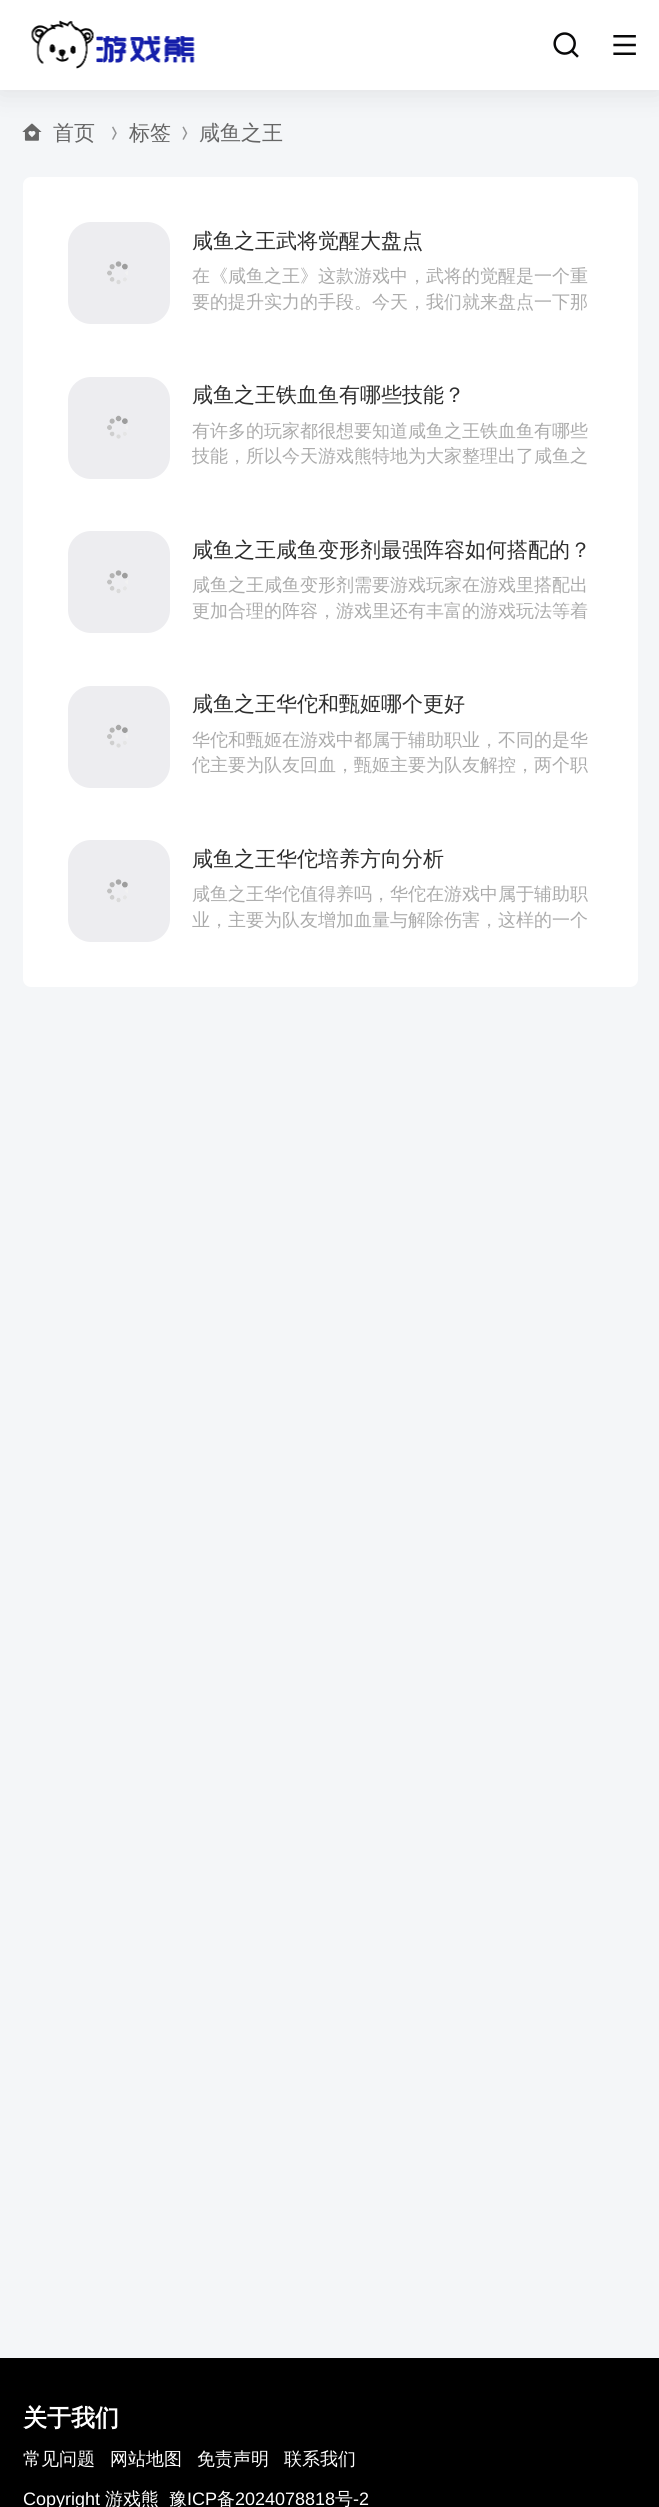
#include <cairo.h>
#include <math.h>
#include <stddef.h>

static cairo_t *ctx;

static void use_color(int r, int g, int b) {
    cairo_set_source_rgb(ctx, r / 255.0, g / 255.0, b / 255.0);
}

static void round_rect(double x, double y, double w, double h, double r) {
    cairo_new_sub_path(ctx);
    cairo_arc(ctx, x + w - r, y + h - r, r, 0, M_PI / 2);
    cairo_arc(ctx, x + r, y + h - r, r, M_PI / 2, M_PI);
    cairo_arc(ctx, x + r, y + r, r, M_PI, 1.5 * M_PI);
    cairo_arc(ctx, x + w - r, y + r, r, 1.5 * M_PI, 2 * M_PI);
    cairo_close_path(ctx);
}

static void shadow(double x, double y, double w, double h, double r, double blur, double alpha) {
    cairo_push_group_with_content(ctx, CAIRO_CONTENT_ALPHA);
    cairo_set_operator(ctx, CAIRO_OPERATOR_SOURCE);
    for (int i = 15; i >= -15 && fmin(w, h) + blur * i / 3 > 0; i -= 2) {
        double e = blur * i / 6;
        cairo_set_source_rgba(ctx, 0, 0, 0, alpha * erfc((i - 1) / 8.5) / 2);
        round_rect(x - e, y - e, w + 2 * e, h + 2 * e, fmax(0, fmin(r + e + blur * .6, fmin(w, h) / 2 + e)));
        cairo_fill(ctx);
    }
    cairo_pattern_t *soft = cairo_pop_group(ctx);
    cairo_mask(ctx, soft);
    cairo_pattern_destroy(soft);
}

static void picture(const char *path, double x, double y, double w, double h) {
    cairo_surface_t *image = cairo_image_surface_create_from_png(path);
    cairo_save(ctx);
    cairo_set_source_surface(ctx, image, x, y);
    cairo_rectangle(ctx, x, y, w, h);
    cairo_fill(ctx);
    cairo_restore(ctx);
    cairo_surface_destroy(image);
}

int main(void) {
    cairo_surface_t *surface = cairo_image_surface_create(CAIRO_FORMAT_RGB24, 659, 2507);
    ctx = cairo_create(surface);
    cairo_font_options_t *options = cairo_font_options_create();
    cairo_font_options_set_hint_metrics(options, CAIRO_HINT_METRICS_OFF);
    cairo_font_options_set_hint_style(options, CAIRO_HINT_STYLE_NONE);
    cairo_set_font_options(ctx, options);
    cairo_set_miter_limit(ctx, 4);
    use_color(244, 246, 248);
    cairo_paint(ctx);
    picture("img4.png", 22, 123, 20, 18);
    picture("img5.png", 112, 126, 5, 14);
    picture("img6.png", 182, 126, 6, 14);
    use_color(0, 0, 0);
    shadow(0, 0, 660, 90, 0, 15, 0.1);
    use_color(255, 255, 255);
    cairo_rectangle(ctx, 0, 0, 659, 90);
    cairo_fill(ctx);
    picture("img1.png", 31, 20, 164, 49);
    picture("img2.png", 553, 32, 26, 26);
    picture("img3.png", 613, 35, 23, 20);
    cairo_select_font_face(ctx, "WenQuanYi Zen Hei Medium", CAIRO_FONT_SLANT_NORMAL, CAIRO_FONT_WEIGHT_NORMAL);
    cairo_set_font_size(ctx, 21);
    use_color(102, 102, 102);
    cairo_move_to(ctx, 53, 140);
    cairo_show_text(ctx, "首页");
    cairo_move_to(ctx, 129, 140);
    cairo_show_text(ctx, "标签");
    cairo_move_to(ctx, 199, 140);
    cairo_show_text(ctx, "咸鱼之王");
    use_color(255, 255, 255);
    round_rect(23, 177, 615, 810, 8);
    cairo_fill(ctx);
    use_color(237, 237, 240);
    round_rect(68, 222, 102, 102, 23);
    cairo_fill(ctx);
    picture("img7.png", 107, 261, 21, 24);
    use_color(45, 45, 45);
    cairo_move_to(ctx, 192, 248);
    cairo_show_text(ctx, "咸鱼之王武将觉醒大盘点");
    cairo_set_font_size(ctx, 18);
    use_color(171, 171, 171);
    cairo_move_to(ctx, 192, 282);
    cairo_show_text(ctx, "在《咸鱼之王》这款游戏中，武将的觉醒是一个重");
    cairo_move_to(ctx, 192, 308);
    cairo_show_text(ctx, "要的提升实力的手段。今天，我们就来盘点一下那");
    use_color(237, 237, 240);
    round_rect(68, 377, 102, 102, 23);
    cairo_fill(ctx);
    picture("img8.png", 107, 415, 21, 24);
    cairo_set_font_size(ctx, 21);
    use_color(45, 45, 45);
    cairo_move_to(ctx, 192, 402);
    cairo_show_text(ctx, "咸鱼之王铁血鱼有哪些技能？");
    cairo_set_font_size(ctx, 18);
    use_color(171, 171, 171);
    cairo_move_to(ctx, 192, 437);
    cairo_show_text(ctx, "有许多的玩家都很想要知道咸鱼之王铁血鱼有哪些");
    cairo_move_to(ctx, 192, 462);
    cairo_show_text(ctx, "技能，所以今天游戏熊特地为大家整理出了咸鱼之");
    use_color(237, 237, 240);
    round_rect(68, 531, 102, 102, 23);
    cairo_fill(ctx);
    picture("img9.png", 107, 570, 21, 24);
    cairo_set_font_size(ctx, 21);
    use_color(45, 45, 45);
    cairo_move_to(ctx, 192, 557);
    cairo_show_text(ctx, "咸鱼之王咸鱼变形剂最强阵容如何搭配的？");
    cairo_set_font_size(ctx, 18);
    use_color(171, 171, 171);
    cairo_move_to(ctx, 192, 591);
    cairo_show_text(ctx, "咸鱼之王咸鱼变形剂需要游戏玩家在游戏里搭配出");
    cairo_move_to(ctx, 192, 617);
    cairo_show_text(ctx, "更加合理的阵容，游戏里还有丰富的游戏玩法等着");
    use_color(237, 237, 240);
    round_rect(68, 686, 102, 102, 23);
    cairo_fill(ctx);
    picture("img8.png", 107, 724, 21, 24);
    cairo_set_font_size(ctx, 21);
    use_color(45, 45, 45);
    cairo_move_to(ctx, 192, 711);
    cairo_show_text(ctx, "咸鱼之王华佗和甄姬哪个更好");
    cairo_set_font_size(ctx, 18);
    use_color(171, 171, 171);
    cairo_move_to(ctx, 192, 746);
    cairo_show_text(ctx, "华佗和甄姬在游戏中都属于辅助职业，不同的是华");
    cairo_move_to(ctx, 192, 771);
    cairo_show_text(ctx, "佗主要为队友回血，甄姬主要为队友解控，两个职");
    use_color(237, 237, 240);
    round_rect(68, 840, 102, 102, 23);
    cairo_fill(ctx);
    picture("img9.png", 107, 879, 21, 24);
    cairo_set_font_size(ctx, 21);
    use_color(45, 45, 45);
    cairo_move_to(ctx, 192, 866);
    cairo_show_text(ctx, "咸鱼之王华佗培养方向分析");
    cairo_set_font_size(ctx, 18);
    use_color(171, 171, 171);
    cairo_move_to(ctx, 192, 900);
    cairo_show_text(ctx, "咸鱼之王华佗值得养吗，华佗在游戏中属于辅助职");
    cairo_move_to(ctx, 192, 926);
    cairo_show_text(ctx, "业，主要为队友增加血量与解除伤害，这样的一个");
    use_color(0, 0, 0);
    cairo_rectangle(ctx, 0, 2358, 659, 149);
    cairo_fill(ctx);
    cairo_select_font_face(ctx, "WenQuanYi Zen Hei", CAIRO_FONT_SLANT_NORMAL, CAIRO_FONT_WEIGHT_BOLD);
    cairo_set_font_size(ctx, 24);
    use_color(255, 255, 255);
    cairo_move_to(ctx, 23, 2426);
    cairo_show_text(ctx, "关于我们");
    cairo_select_font_face(ctx, "WenQuanYi Zen Hei Medium", CAIRO_FONT_SLANT_NORMAL, CAIRO_FONT_WEIGHT_NORMAL);
    cairo_set_font_size(ctx, 18);
    cairo_move_to(ctx, 23, 2465);
    cairo_show_text(ctx, "常见问题");
    cairo_move_to(ctx, 110, 2465);
    cairo_show_text(ctx, "网站地图");
    cairo_move_to(ctx, 197, 2465);
    cairo_show_text(ctx, "免责声明");
    cairo_move_to(ctx, 284, 2465);
    cairo_show_text(ctx, "联系我们");
    cairo_select_font_face(ctx, "Liberation Sans", CAIRO_FONT_SLANT_NORMAL, CAIRO_FONT_WEIGHT_NORMAL);
    cairo_move_to(ctx, 23, 2505);
    cairo_show_text(ctx, "Copyright");
    cairo_select_font_face(ctx, "WenQuanYi Zen Hei Medium", CAIRO_FONT_SLANT_NORMAL, CAIRO_FONT_WEIGHT_NORMAL);
    cairo_move_to(ctx, 105, 2505);
    cairo_show_text(ctx, "游戏熊");
    cairo_move_to(ctx, 169, 2505);
    cairo_show_text(ctx, "豫");
    cairo_select_font_face(ctx, "Liberation Sans", CAIRO_FONT_SLANT_NORMAL, CAIRO_FONT_WEIGHT_NORMAL);
    cairo_move_to(ctx, 187, 2505);
    cairo_show_text(ctx, "ICP");
    cairo_select_font_face(ctx, "WenQuanYi Zen Hei Medium", CAIRO_FONT_SLANT_NORMAL, CAIRO_FONT_WEIGHT_NORMAL);
    cairo_move_to(ctx, 217, 2505);
    cairo_show_text(ctx, "备");
    cairo_select_font_face(ctx, "Liberation Sans", CAIRO_FONT_SLANT_NORMAL, CAIRO_FONT_WEIGHT_NORMAL);
    cairo_move_to(ctx, 235, 2505);
    cairo_show_text(ctx, "2024078818");
    cairo_select_font_face(ctx, "WenQuanYi Zen Hei Medium", CAIRO_FONT_SLANT_NORMAL, CAIRO_FONT_WEIGHT_NORMAL);
    cairo_move_to(ctx, 335, 2505);
    cairo_show_text(ctx, "号");
    cairo_select_font_face(ctx, "Liberation Sans", CAIRO_FONT_SLANT_NORMAL, CAIRO_FONT_WEIGHT_NORMAL);
    cairo_move_to(ctx, 353, 2505);
    cairo_show_text(ctx, "-2");
    cairo_surface_write_to_png(surface, "result.png");
    cairo_font_options_destroy(options);
    cairo_destroy(ctx);
    cairo_surface_destroy(surface);
    return 0;
}
